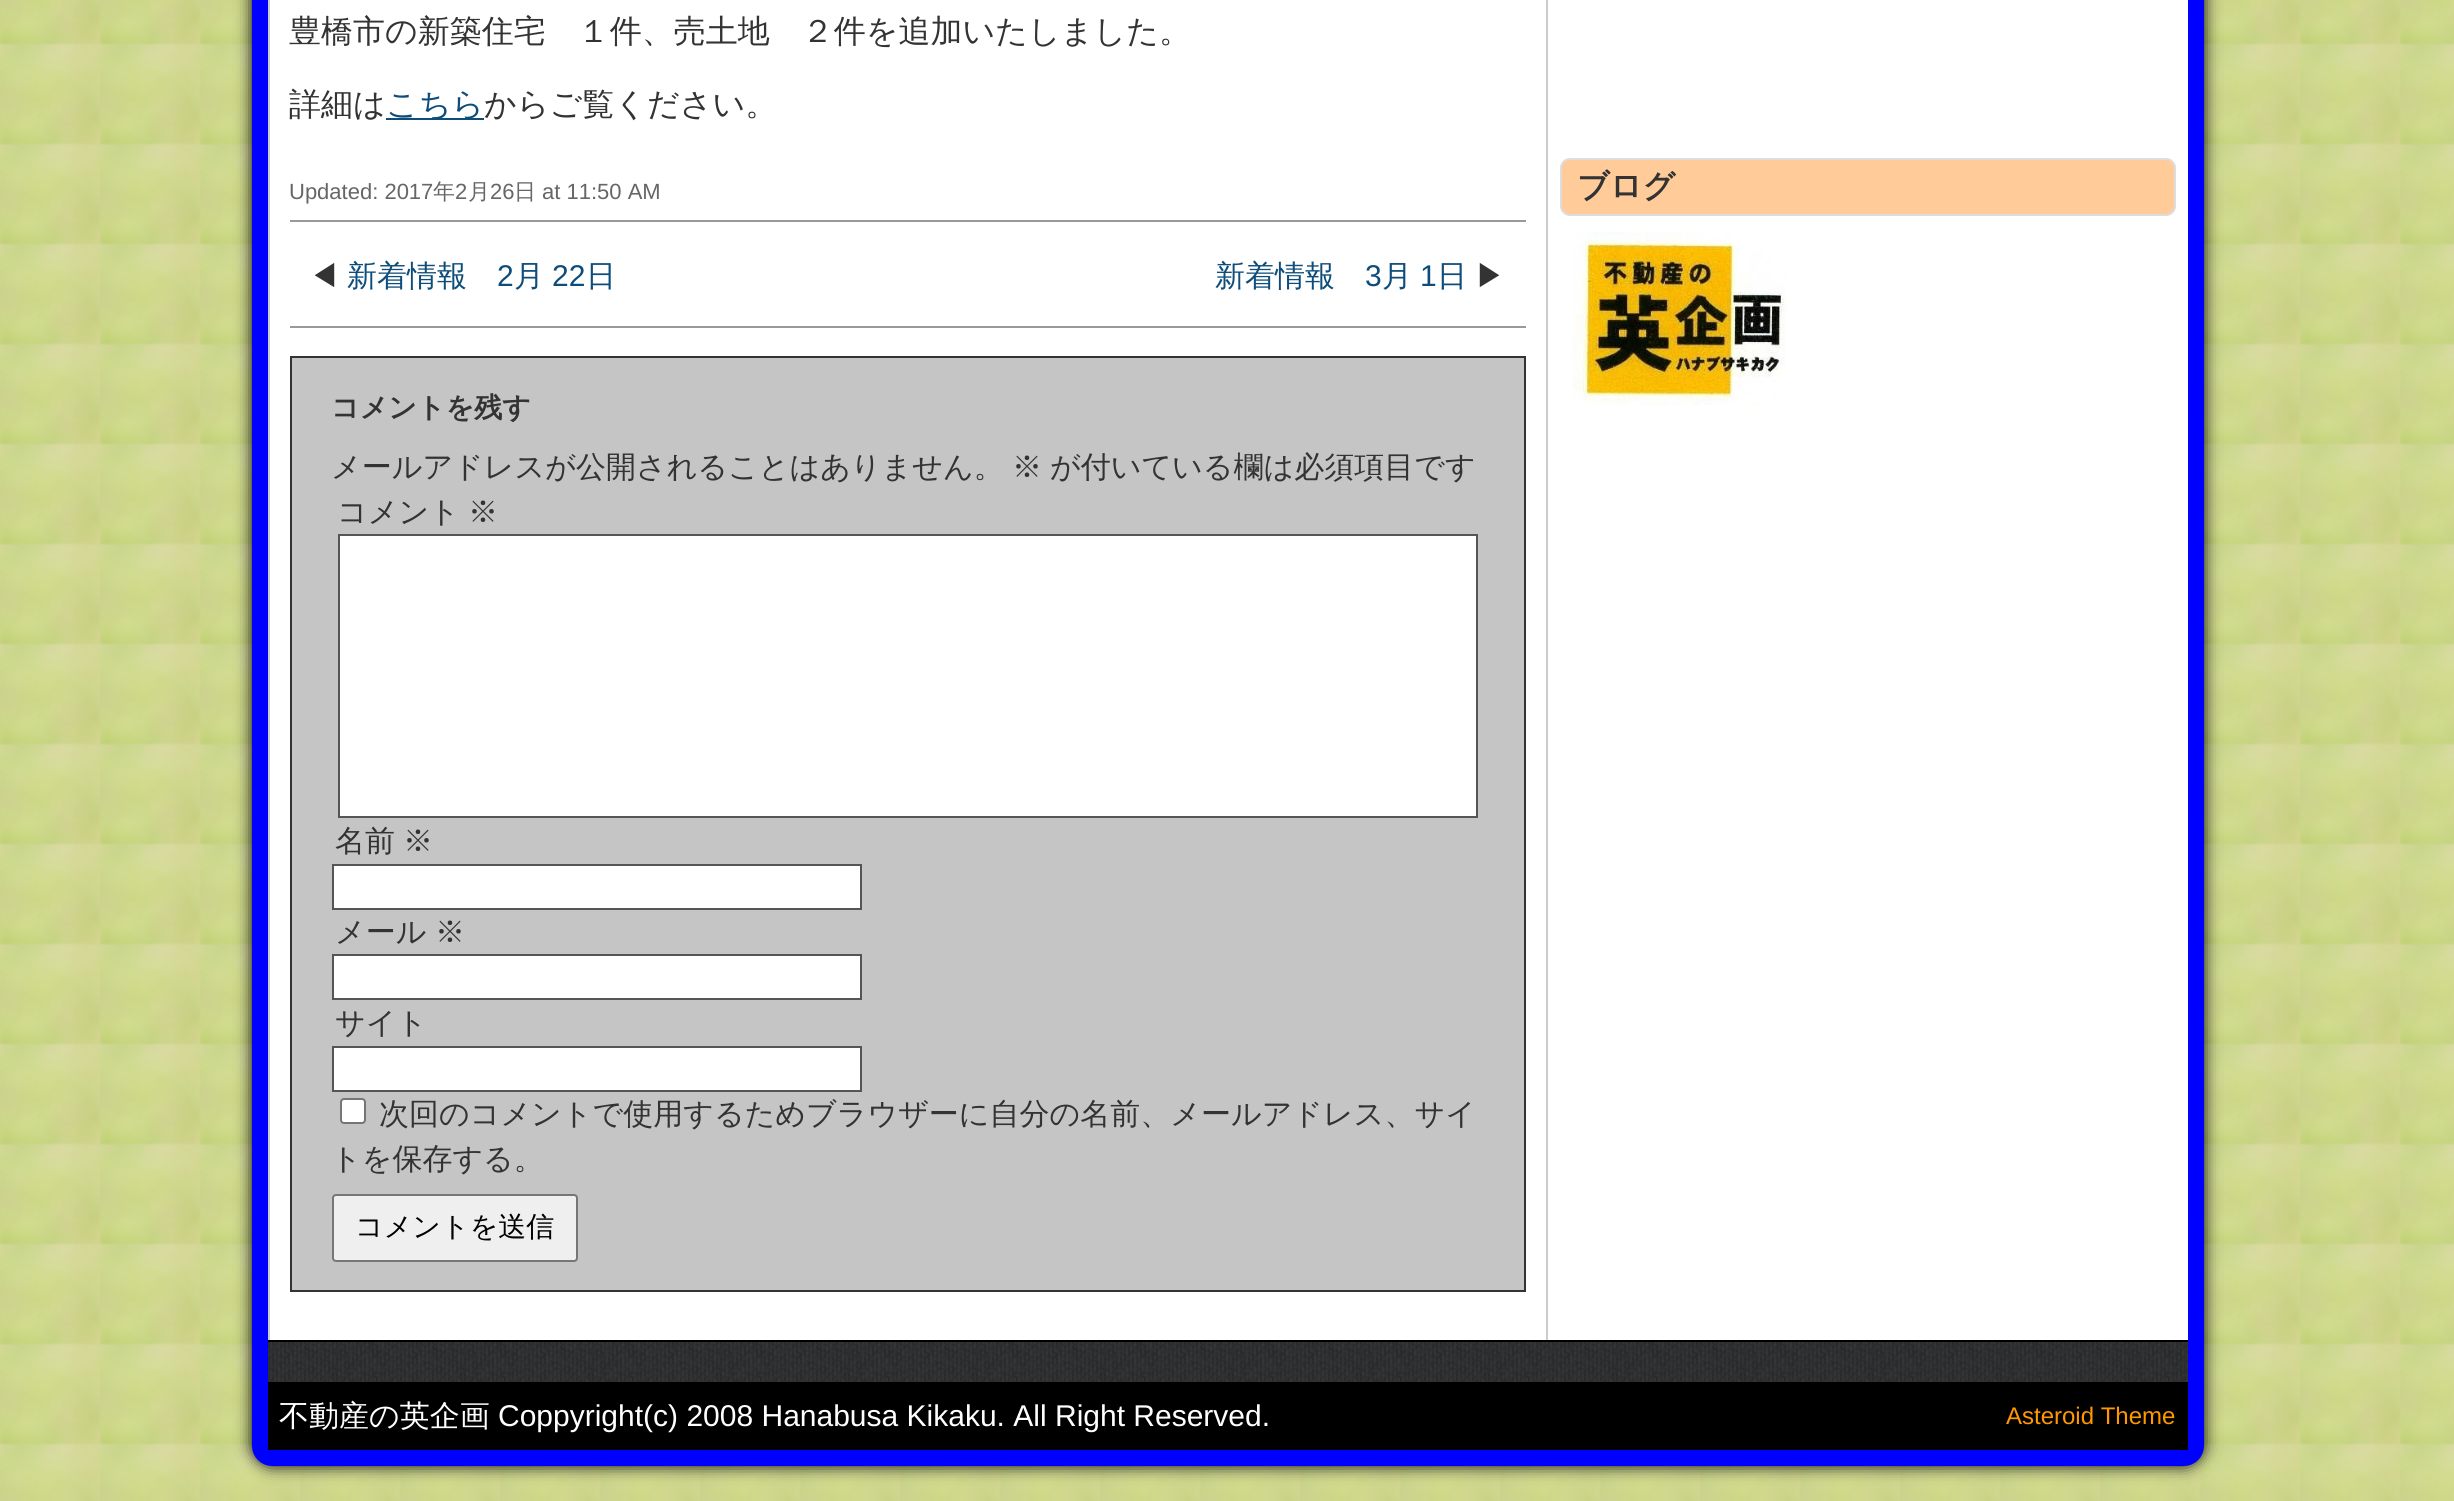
#include <cairo.h>
#include <math.h>
#include <stddef.h>

static cairo_t *ctx;

static void use_color(int r, int g, int b) {
    cairo_set_source_rgb(ctx, r / 255.0, g / 255.0, b / 255.0);
}

static void round_rect(double x, double y, double w, double h, double r) {
    cairo_new_sub_path(ctx);
    cairo_arc(ctx, x + w - r, y + h - r, r, 0, M_PI / 2);
    cairo_arc(ctx, x + r, y + h - r, r, M_PI / 2, M_PI);
    cairo_arc(ctx, x + r, y + r, r, M_PI, 1.5 * M_PI);
    cairo_arc(ctx, x + w - r, y + r, r, 1.5 * M_PI, 2 * M_PI);
    cairo_close_path(ctx);
}

static void shadow(double x, double y, double w, double h, double r, double blur, double alpha) {
    cairo_push_group_with_content(ctx, CAIRO_CONTENT_ALPHA);
    cairo_set_operator(ctx, CAIRO_OPERATOR_SOURCE);
    for (int i = 15; i >= -15 && fmin(w, h) + blur * i / 3 > 0; i -= 2) {
        double e = blur * i / 6;
        cairo_set_source_rgba(ctx, 0, 0, 0, alpha * erfc((i - 1) / 8.5) / 2);
        round_rect(x - e, y - e, w + 2 * e, h + 2 * e, fmax(0, fmin(r + e + blur * .6, fmin(w, h) / 2 + e)));
        cairo_fill(ctx);
    }
    cairo_pattern_t *soft = cairo_pop_group(ctx);
    cairo_mask(ctx, soft);
    cairo_pattern_destroy(soft);
}

static void picture(const char *path, double x, double y, double w, double h) {
    cairo_surface_t *image = cairo_image_surface_create_from_png(path);
    cairo_save(ctx);
    cairo_set_source_surface(ctx, image, x, y);
    cairo_rectangle(ctx, x, y, w, h);
    cairo_fill(ctx);
    cairo_restore(ctx);
    cairo_surface_destroy(image);
}

int main(void) {
    cairo_surface_t *surface = cairo_image_surface_create(CAIRO_FORMAT_RGB24, 2454, 1501);
    ctx = cairo_create(surface);
    cairo_font_options_t *options = cairo_font_options_create();
    cairo_font_options_set_hint_metrics(options, CAIRO_HINT_METRICS_OFF);
    cairo_font_options_set_hint_style(options, CAIRO_HINT_STYLE_NONE);
    cairo_set_font_options(ctx, options);
    cairo_set_miter_limit(ctx, 4);
    use_color(255, 255, 255);
    cairo_paint(ctx);
    picture("img1.png", 0, 0, 2454, 1501);
    use_color(0, 0, 0);
    shadow(252, -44, 1952, 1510, 20, 8, 1);
    use_color(255, 255, 255);
    round_rect(260, -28, 1936, 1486, 12);
    cairo_fill_preserve(ctx);
    use_color(0, 0, 255);
    cairo_set_line_width(ctx, 16);
    cairo_stroke(ctx);
    use_color(204, 204, 204);
    cairo_rectangle(ctx, 1546, 0, 2, 1340);
    cairo_fill(ctx);
    cairo_rectangle(ctx, 268, 0, 2, 1340);
    cairo_fill(ctx);
    cairo_select_font_face(ctx, "WenQuanYi Zen Hei Medium", CAIRO_FONT_SLANT_NORMAL, CAIRO_FONT_WEIGHT_NORMAL);
    cairo_set_font_size(ctx, 32);
    use_color(51, 51, 51);
    cairo_move_to(ctx, 289, 42);
    cairo_show_text(ctx, "豊橋市の新築住宅　１件、売土地　２件を追加いたしました。");
    cairo_move_to(ctx, 289, 115);
    cairo_show_text(ctx, "詳細は");
    use_color(14, 77, 122);
    cairo_rectangle(ctx, 386, 118, 98, 2);
    cairo_fill(ctx);
    cairo_move_to(ctx, 386, 115);
    cairo_show_text(ctx, "こちら");
    use_color(51, 51, 51);
    cairo_move_to(ctx, 484, 115);
    cairo_show_text(ctx, "からご覧ください。");
    use_color(153, 153, 153);
    cairo_rectangle(ctx, 290, 326, 1236, 2);
    cairo_fill(ctx);
    cairo_select_font_face(ctx, "Liberation Sans", CAIRO_FONT_SLANT_NORMAL, CAIRO_FONT_WEIGHT_NORMAL);
    cairo_set_font_size(ctx, 22);
    use_color(102, 102, 102);
    cairo_move_to(ctx, 289, 199);
    cairo_show_text(ctx, "Updated: 2017");
    cairo_select_font_face(ctx, "WenQuanYi Zen Hei Medium", CAIRO_FONT_SLANT_NORMAL, CAIRO_FONT_WEIGHT_NORMAL);
    cairo_move_to(ctx, 433, 199);
    cairo_show_text(ctx, "年");
    cairo_select_font_face(ctx, "Liberation Sans", CAIRO_FONT_SLANT_NORMAL, CAIRO_FONT_WEIGHT_NORMAL);
    cairo_move_to(ctx, 455, 199);
    cairo_show_text(ctx, "2");
    cairo_select_font_face(ctx, "WenQuanYi Zen Hei Medium", CAIRO_FONT_SLANT_NORMAL, CAIRO_FONT_WEIGHT_NORMAL);
    cairo_move_to(ctx, 468, 199);
    cairo_show_text(ctx, "月");
    cairo_select_font_face(ctx, "Liberation Sans", CAIRO_FONT_SLANT_NORMAL, CAIRO_FONT_WEIGHT_NORMAL);
    cairo_move_to(ctx, 490, 199);
    cairo_show_text(ctx, "26");
    cairo_select_font_face(ctx, "WenQuanYi Zen Hei Medium", CAIRO_FONT_SLANT_NORMAL, CAIRO_FONT_WEIGHT_NORMAL);
    cairo_move_to(ctx, 514, 199);
    cairo_show_text(ctx, "日");
    cairo_select_font_face(ctx, "Liberation Sans", CAIRO_FONT_SLANT_NORMAL, CAIRO_FONT_WEIGHT_NORMAL);
    cairo_move_to(ctx, 542, 199);
    cairo_show_text(ctx, "at 11:50 AM");
    use_color(153, 153, 153);
    cairo_rectangle(ctx, 290, 220, 1236, 2);
    cairo_fill(ctx);
    cairo_select_font_face(ctx, "WenQuanYi Zen Hei Medium", CAIRO_FONT_SLANT_NORMAL, CAIRO_FONT_WEIGHT_NORMAL);
    cairo_set_font_size(ctx, 30);
    use_color(51, 51, 51);
    cairo_move_to(ctx, 309, 286);
    cairo_show_text(ctx, "◀");
    use_color(14, 77, 122);
    cairo_move_to(ctx, 347, 286);
    cairo_show_text(ctx, "新着情報");
    cairo_select_font_face(ctx, "Liberation Sans", CAIRO_FONT_SLANT_NORMAL, CAIRO_FONT_WEIGHT_NORMAL);
    cairo_move_to(ctx, 497, 286);
    cairo_show_text(ctx, "2");
    cairo_select_font_face(ctx, "WenQuanYi Zen Hei Medium", CAIRO_FONT_SLANT_NORMAL, CAIRO_FONT_WEIGHT_NORMAL);
    cairo_move_to(ctx, 514, 286);
    cairo_show_text(ctx, "月");
    cairo_select_font_face(ctx, "Liberation Sans", CAIRO_FONT_SLANT_NORMAL, CAIRO_FONT_WEIGHT_NORMAL);
    cairo_move_to(ctx, 552, 286);
    cairo_show_text(ctx, "22");
    cairo_select_font_face(ctx, "WenQuanYi Zen Hei Medium", CAIRO_FONT_SLANT_NORMAL, CAIRO_FONT_WEIGHT_NORMAL);
    cairo_move_to(ctx, 586, 286);
    cairo_show_text(ctx, "日");
    cairo_move_to(ctx, 1215, 286);
    cairo_show_text(ctx, "新着情報");
    cairo_select_font_face(ctx, "Liberation Sans", CAIRO_FONT_SLANT_NORMAL, CAIRO_FONT_WEIGHT_NORMAL);
    cairo_move_to(ctx, 1365, 286);
    cairo_show_text(ctx, "3");
    cairo_select_font_face(ctx, "WenQuanYi Zen Hei Medium", CAIRO_FONT_SLANT_NORMAL, CAIRO_FONT_WEIGHT_NORMAL);
    cairo_move_to(ctx, 1382, 286);
    cairo_show_text(ctx, "月");
    cairo_select_font_face(ctx, "Liberation Sans", CAIRO_FONT_SLANT_NORMAL, CAIRO_FONT_WEIGHT_NORMAL);
    cairo_move_to(ctx, 1420, 286);
    cairo_show_text(ctx, "1");
    cairo_select_font_face(ctx, "WenQuanYi Zen Hei Medium", CAIRO_FONT_SLANT_NORMAL, CAIRO_FONT_WEIGHT_NORMAL);
    cairo_move_to(ctx, 1437, 286);
    cairo_show_text(ctx, "日");
    use_color(51, 51, 51);
    cairo_move_to(ctx, 1475, 286);
    cairo_show_text(ctx, "▶");
    use_color(197, 197, 197);
    cairo_rectangle(ctx, 291, 357, 1234, 934);
    cairo_fill_preserve(ctx);
    use_color(51, 51, 51);
    cairo_set_line_width(ctx, 2);
    cairo_stroke(ctx);
    cairo_select_font_face(ctx, "WenQuanYi Zen Hei", CAIRO_FONT_SLANT_NORMAL, CAIRO_FONT_WEIGHT_BOLD);
    cairo_set_font_size(ctx, 28);
    cairo_move_to(ctx, 331, 417);
    cairo_show_text(ctx, "コメントを残す");
    cairo_select_font_face(ctx, "WenQuanYi Zen Hei Medium", CAIRO_FONT_SLANT_NORMAL, CAIRO_FONT_WEIGHT_NORMAL);
    cairo_set_font_size(ctx, 30);
    cairo_move_to(ctx, 331, 477);
    cairo_show_text(ctx, "メールアドレスが公開されることはありません。");
    cairo_move_to(ctx, 1012, 477);
    cairo_show_text(ctx, "※");
    cairo_move_to(ctx, 1050, 477);
    cairo_show_text(ctx, "が付いている欄は必須項目です");
    cairo_move_to(ctx, 337, 522);
    cairo_show_text(ctx, "コメント");
    cairo_move_to(ctx, 468, 522);
    cairo_show_text(ctx, "※");
    use_color(255, 255, 255);
    cairo_rectangle(ctx, 339, 535, 1138, 282);
    cairo_fill_preserve(ctx);
    use_color(85, 85, 85);
    cairo_stroke(ctx);
    use_color(51, 51, 51);
    cairo_move_to(ctx, 335, 851);
    cairo_show_text(ctx, "名前");
    cairo_move_to(ctx, 403, 851);
    cairo_show_text(ctx, "※");
    use_color(255, 255, 255);
    cairo_rectangle(ctx, 333, 865, 528, 44);
    cairo_fill_preserve(ctx);
    use_color(85, 85, 85);
    cairo_stroke(ctx);
    use_color(51, 51, 51);
    cairo_move_to(ctx, 335, 942);
    cairo_show_text(ctx, "メール");
    cairo_move_to(ctx, 435, 942);
    cairo_show_text(ctx, "※");
    use_color(255, 255, 255);
    cairo_rectangle(ctx, 333, 955, 528, 44);
    cairo_fill_preserve(ctx);
    use_color(85, 85, 85);
    cairo_stroke(ctx);
    use_color(51, 51, 51);
    cairo_move_to(ctx, 335, 1033);
    cairo_show_text(ctx, "サイト");
    use_color(255, 255, 255);
    cairo_rectangle(ctx, 333, 1047, 528, 44);
    cairo_fill_preserve(ctx);
    use_color(85, 85, 85);
    cairo_stroke(ctx);
    use_color(255, 255, 255);
    round_rect(341, 1099, 24, 24, 3);
    cairo_fill_preserve(ctx);
    use_color(118, 118, 118);
    cairo_stroke(ctx);
    use_color(51, 51, 51);
    cairo_move_to(ctx, 379, 1124);
    cairo_show_text(ctx, "次回のコメントで使用するためブラウザーに自分の名前、メールアドレス、サイ");
    cairo_move_to(ctx, 331, 1169);
    cairo_show_text(ctx, "トを保存する。");
    use_color(239, 239, 239);
    round_rect(333, 1195, 244, 66, 3);
    cairo_fill_preserve(ctx);
    use_color(118, 118, 118);
    cairo_stroke(ctx);
    cairo_set_font_size(ctx, 28);
    use_color(0, 0, 0);
    cairo_move_to(ctx, 355, 1236);
    cairo_show_text(ctx, "コメントを送信");
    use_color(255, 204, 153);
    round_rect(1561, 159, 614, 56, 9);
    cairo_fill_preserve(ctx);
    use_color(221, 221, 221);
    cairo_stroke(ctx);
    cairo_select_font_face(ctx, "WenQuanYi Zen Hei", CAIRO_FONT_SLANT_NORMAL, CAIRO_FONT_WEIGHT_BOLD);
    cairo_set_font_size(ctx, 32);
    use_color(51, 51, 51);
    cairo_move_to(ctx, 1577, 197);
    cairo_show_text(ctx, "ブログ");
    picture("img2.png", 1572, 232, 214, 174);
    picture("img3.png", 268, 1342, 1920, 40);
    use_color(0, 0, 0);
    cairo_rectangle(ctx, 268, 1340, 1920, 2);
    cairo_fill(ctx);
    cairo_rectangle(ctx, 268, 1382, 1920, 68);
    cairo_fill(ctx);
    cairo_select_font_face(ctx, "WenQuanYi Zen Hei Medium", CAIRO_FONT_SLANT_NORMAL, CAIRO_FONT_WEIGHT_NORMAL);
    cairo_set_font_size(ctx, 30);
    use_color(255, 255, 255);
    cairo_move_to(ctx, 279, 1426);
    cairo_show_text(ctx, "不動産の英企画");
    cairo_select_font_face(ctx, "Liberation Sans", CAIRO_FONT_SLANT_NORMAL, CAIRO_FONT_WEIGHT_NORMAL);
    cairo_move_to(ctx, 498, 1426);
    cairo_show_text(ctx, "Coppyright(c) 2008 Hanabusa Kikaku. All Right Reserved.");
    cairo_set_font_size(ctx, 24);
    use_color(255, 152, 0);
    cairo_move_to(ctx, 2006, 1424);
    cairo_show_text(ctx, "Asteroid Theme");
    cairo_surface_write_to_png(surface, "result.png");
    cairo_font_options_destroy(options);
    cairo_destroy(ctx);
    cairo_surface_destroy(surface);
    return 0;
}
